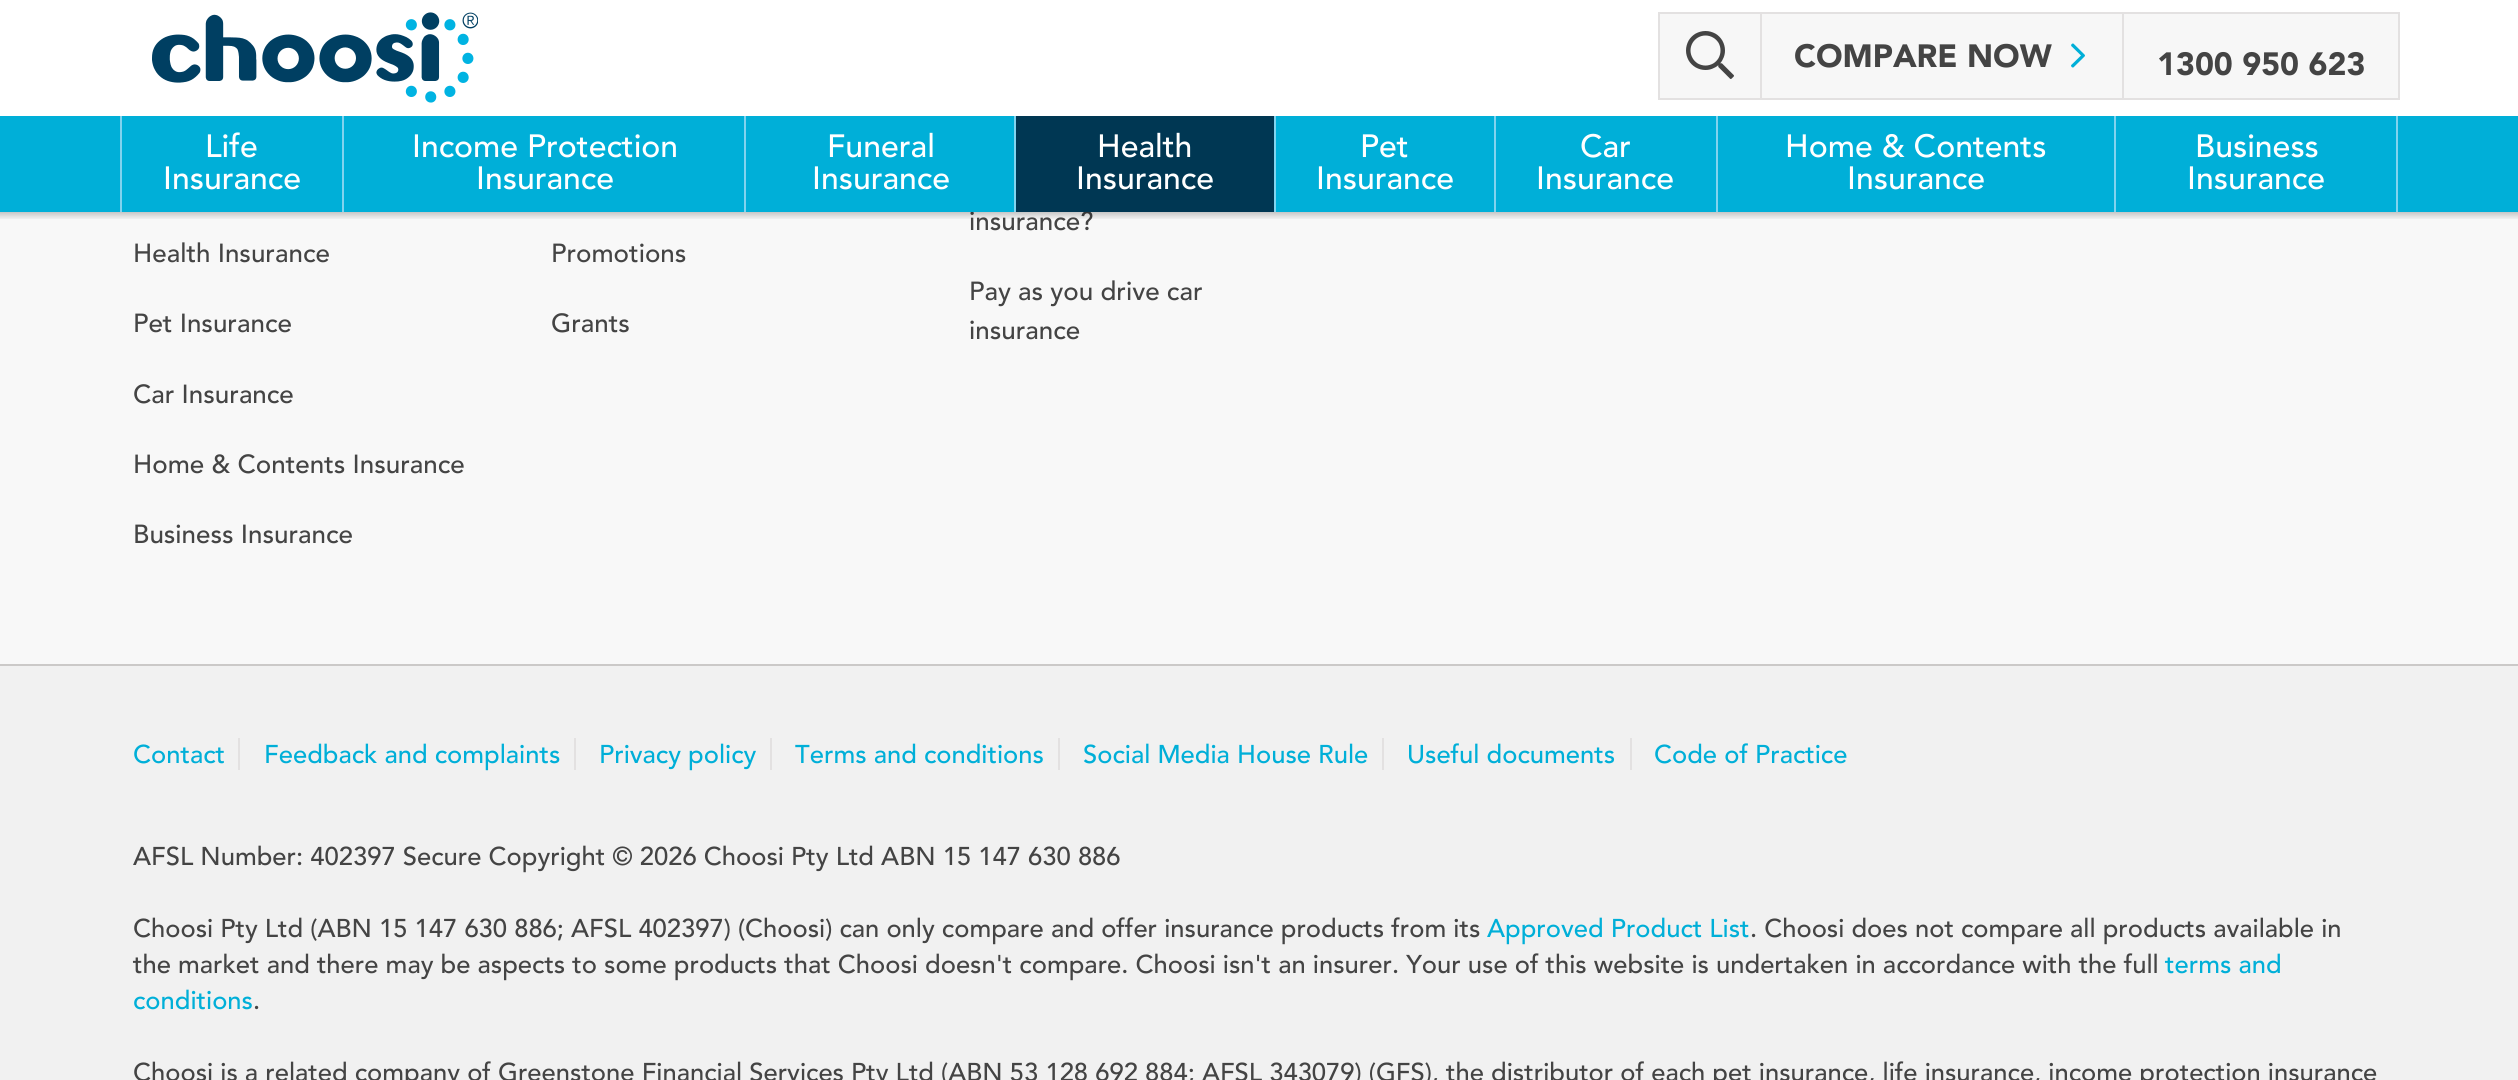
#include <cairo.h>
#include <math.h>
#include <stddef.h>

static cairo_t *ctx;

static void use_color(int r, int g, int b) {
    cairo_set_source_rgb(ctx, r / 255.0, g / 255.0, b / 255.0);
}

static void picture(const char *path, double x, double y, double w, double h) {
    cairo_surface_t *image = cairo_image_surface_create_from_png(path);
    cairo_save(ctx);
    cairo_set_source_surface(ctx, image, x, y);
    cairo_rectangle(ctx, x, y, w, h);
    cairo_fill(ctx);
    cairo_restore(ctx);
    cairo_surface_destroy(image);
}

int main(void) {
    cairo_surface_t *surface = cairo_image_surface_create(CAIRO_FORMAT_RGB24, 2518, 1080);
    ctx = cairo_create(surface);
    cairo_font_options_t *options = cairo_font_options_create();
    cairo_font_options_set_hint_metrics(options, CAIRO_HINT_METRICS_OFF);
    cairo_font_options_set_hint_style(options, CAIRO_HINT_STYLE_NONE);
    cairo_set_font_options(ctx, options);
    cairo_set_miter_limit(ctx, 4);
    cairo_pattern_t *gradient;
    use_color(248, 248, 248);
    cairo_paint(ctx);
    use_color(255, 255, 255);
    cairo_rectangle(ctx, 0, 0, 2518, 116);
    cairo_fill(ctx);
    picture("img1.png", 152, 12, 326, 91);
    use_color(247, 247, 247);
    cairo_rectangle(ctx, 1659, 13, 740, 86);
    cairo_fill_preserve(ctx);
    use_color(227, 225, 225);
    cairo_stroke(ctx);
    picture("img2.png", 1686, 31, 48, 48);
    cairo_rectangle(ctx, 1760, 14, 2, 84);
    cairo_fill(ctx);
    cairo_select_font_face(ctx, "Avenir Black", CAIRO_FONT_SLANT_NORMAL, CAIRO_FONT_WEIGHT_NORMAL);
    cairo_set_font_size(ctx, 32);
    use_color(68, 68, 68);
    cairo_move_to(ctx, 1794, 67);
    cairo_show_text(ctx, "COMPARE NOW");
    picture("img3.png", 2071, 43, 14, 25);
    use_color(227, 225, 225);
    cairo_rectangle(ctx, 2122, 14, 2, 84);
    cairo_fill(ctx);
    use_color(68, 68, 68);
    cairo_move_to(ctx, 2157, 75);
    cairo_show_text(ctx, "1300 950 623");
    cairo_select_font_face(ctx, "Avenir Medium", CAIRO_FONT_SLANT_NORMAL, CAIRO_FONT_WEIGHT_NORMAL);
    cairo_set_font_size(ctx, 26);
    cairo_move_to(ctx, 969, 230);
    cairo_show_text(ctx, "insurance?");
    use_color(0, 175, 216);
    cairo_rectangle(ctx, 0, 116, 2518, 96);
    cairo_fill(ctx);
    use_color(130, 211, 238);
    cairo_rectangle(ctx, 342, 116, 2, 96);
    cairo_fill(ctx);
    cairo_rectangle(ctx, 120, 116, 2, 96);
    cairo_fill(ctx);
    cairo_set_font_size(ctx, 32);
    use_color(255, 255, 255);
    cairo_move_to(ctx, 205, 157);
    cairo_show_text(ctx, "Life");
    cairo_move_to(ctx, 163, 189);
    cairo_show_text(ctx, "Insurance");
    use_color(130, 211, 238);
    cairo_rectangle(ctx, 744, 116, 2, 96);
    cairo_fill(ctx);
    use_color(255, 255, 255);
    cairo_move_to(ctx, 412, 157);
    cairo_show_text(ctx, "Income Protection");
    cairo_move_to(ctx, 476, 189);
    cairo_show_text(ctx, "Insurance");
    use_color(130, 211, 238);
    cairo_rectangle(ctx, 1014, 116, 2, 96);
    cairo_fill(ctx);
    use_color(255, 255, 255);
    cairo_move_to(ctx, 827, 157);
    cairo_show_text(ctx, "Funeral");
    cairo_move_to(ctx, 812, 189);
    cairo_show_text(ctx, "Insurance");
    use_color(0, 55, 83);
    cairo_rectangle(ctx, 1016, 116, 258, 96);
    cairo_fill(ctx);
    use_color(130, 211, 238);
    cairo_rectangle(ctx, 1274, 116, 2, 96);
    cairo_fill(ctx);
    use_color(255, 255, 255);
    cairo_move_to(ctx, 1097, 157);
    cairo_show_text(ctx, "Health");
    cairo_move_to(ctx, 1076, 189);
    cairo_show_text(ctx, "Insurance");
    use_color(130, 211, 238);
    cairo_rectangle(ctx, 1494, 116, 2, 96);
    cairo_fill(ctx);
    use_color(255, 255, 255);
    cairo_move_to(ctx, 1360, 157);
    cairo_show_text(ctx, "Pet");
    cairo_move_to(ctx, 1316, 189);
    cairo_show_text(ctx, "Insurance");
    use_color(130, 211, 238);
    cairo_rectangle(ctx, 1716, 116, 2, 96);
    cairo_fill(ctx);
    use_color(255, 255, 255);
    cairo_move_to(ctx, 1580, 157);
    cairo_show_text(ctx, "Car");
    cairo_move_to(ctx, 1536, 189);
    cairo_show_text(ctx, "Insurance");
    use_color(130, 211, 238);
    cairo_rectangle(ctx, 2114, 116, 2, 96);
    cairo_fill(ctx);
    use_color(255, 255, 255);
    cairo_move_to(ctx, 1785, 157);
    cairo_show_text(ctx, "Home & Contents");
    cairo_move_to(ctx, 1847, 189);
    cairo_show_text(ctx, "Insurance");
    use_color(130, 211, 238);
    cairo_rectangle(ctx, 2396, 116, 2, 96);
    cairo_fill(ctx);
    use_color(255, 255, 255);
    cairo_move_to(ctx, 2195, 157);
    cairo_show_text(ctx, "Business");
    cairo_move_to(ctx, 2187, 189);
    cairo_show_text(ctx, "Insurance");
    gradient = cairo_pattern_create_linear(1259, 212, 1259, 220);
    cairo_pattern_add_color_stop_rgba(gradient, 0, 0, 0, 0, 0.2);
    cairo_pattern_add_color_stop_rgba(gradient, 1, 0, 0, 0, 0);
    cairo_set_source(ctx, gradient);
    cairo_pattern_destroy(gradient);
    cairo_rectangle(ctx, 0, 212, 2518, 7);
    cairo_fill(ctx);
    cairo_set_font_size(ctx, 26);
    use_color(68, 68, 68);
    cairo_move_to(ctx, 133, 262);
    cairo_show_text(ctx, "Health Insurance");
    cairo_move_to(ctx, 133, 332);
    cairo_show_text(ctx, "Pet Insurance");
    cairo_move_to(ctx, 133, 403);
    cairo_show_text(ctx, "Car Insurance");
    cairo_move_to(ctx, 133, 473);
    cairo_show_text(ctx, "Home & Contents Insurance");
    cairo_move_to(ctx, 133, 543);
    cairo_show_text(ctx, "Business Insurance");
    cairo_move_to(ctx, 551, 262);
    cairo_show_text(ctx, "Promotions");
    cairo_move_to(ctx, 551, 332);
    cairo_show_text(ctx, "Grants");
    cairo_move_to(ctx, 969, 300);
    cairo_show_text(ctx, "Pay as you drive car");
    cairo_move_to(ctx, 969, 339);
    cairo_show_text(ctx, "insurance");
    use_color(241, 241, 241);
    cairo_rectangle(ctx, 0, 666, 2518, 414);
    cairo_fill(ctx);
    use_color(203, 201, 200);
    cairo_rectangle(ctx, 0, 664, 2518, 2);
    cairo_fill(ctx);
    cairo_set_font_size(ctx, 25.6);
    use_color(0, 175, 216);
    cairo_move_to(ctx, 133, 763);
    cairo_show_text(ctx, "Contact");
    use_color(227, 225, 225);
    cairo_rectangle(ctx, 238, 738, 2, 32);
    cairo_fill(ctx);
    use_color(0, 175, 216);
    cairo_move_to(ctx, 264, 763);
    cairo_show_text(ctx, "Feedback and complaints");
    use_color(227, 225, 225);
    cairo_rectangle(ctx, 574, 738, 2, 32);
    cairo_fill(ctx);
    use_color(0, 175, 216);
    cairo_move_to(ctx, 599, 763);
    cairo_show_text(ctx, "Privacy policy");
    use_color(227, 225, 225);
    cairo_rectangle(ctx, 770, 738, 2, 32);
    cairo_fill(ctx);
    use_color(0, 175, 216);
    cairo_move_to(ctx, 795, 763);
    cairo_show_text(ctx, "Terms and conditions");
    use_color(227, 225, 225);
    cairo_rectangle(ctx, 1058, 738, 2, 32);
    cairo_fill(ctx);
    use_color(0, 175, 216);
    cairo_move_to(ctx, 1083, 763);
    cairo_show_text(ctx, "Social Media House Rule");
    use_color(227, 225, 225);
    cairo_rectangle(ctx, 1382, 738, 2, 32);
    cairo_fill(ctx);
    use_color(0, 175, 216);
    cairo_move_to(ctx, 1407, 763);
    cairo_show_text(ctx, "Useful documents");
    use_color(227, 225, 225);
    cairo_rectangle(ctx, 1630, 738, 2, 32);
    cairo_fill(ctx);
    use_color(0, 175, 216);
    cairo_move_to(ctx, 1654, 763);
    cairo_show_text(ctx, "Code of Practice");
    use_color(68, 68, 68);
    cairo_move_to(ctx, 133, 865);
    cairo_show_text(ctx, "AFSL Number: 402397 Secure Copyright © 2026 Choosi Pty Ltd ABN 15 147 630 886");
    cairo_move_to(ctx, 133, 937);
    cairo_show_text(ctx, "Choosi Pty Ltd (ABN 15 147 630 886; AFSL 402397) (Choosi) can only compare and offer insurance products from its");
    use_color(0, 175, 216);
    cairo_move_to(ctx, 1487, 937);
    cairo_show_text(ctx, "Approved Product List");
    use_color(68, 68, 68);
    cairo_move_to(ctx, 1750, 937);
    cairo_show_text(ctx, ". Choosi does not compare all products available in");
    cairo_move_to(ctx, 133, 973);
    cairo_show_text(ctx, "the market and there may be aspects to some products that Choosi doesn't compare. Choosi isn't an insurer. Your use of this website is undertaken in accordance with the full");
    use_color(0, 175, 216);
    cairo_move_to(ctx, 2165, 973);
    cairo_show_text(ctx, "terms and");
    cairo_move_to(ctx, 133, 1009);
    cairo_show_text(ctx, "conditions");
    use_color(68, 68, 68);
    cairo_move_to(ctx, 253, 1009);
    cairo_show_text(ctx, ".");
    cairo_move_to(ctx, 133, 1081);
    cairo_show_text(ctx, "Choosi is a related company of Greenstone Financial Services Pty Ltd (ABN 53 128 692 884; AFSL 343079) (GFS), the distributor of each pet insurance, life insurance, income protection insurance");
    cairo_surface_write_to_png(surface, "result.png");
    cairo_font_options_destroy(options);
    cairo_destroy(ctx);
    cairo_surface_destroy(surface);
    return 0;
}
